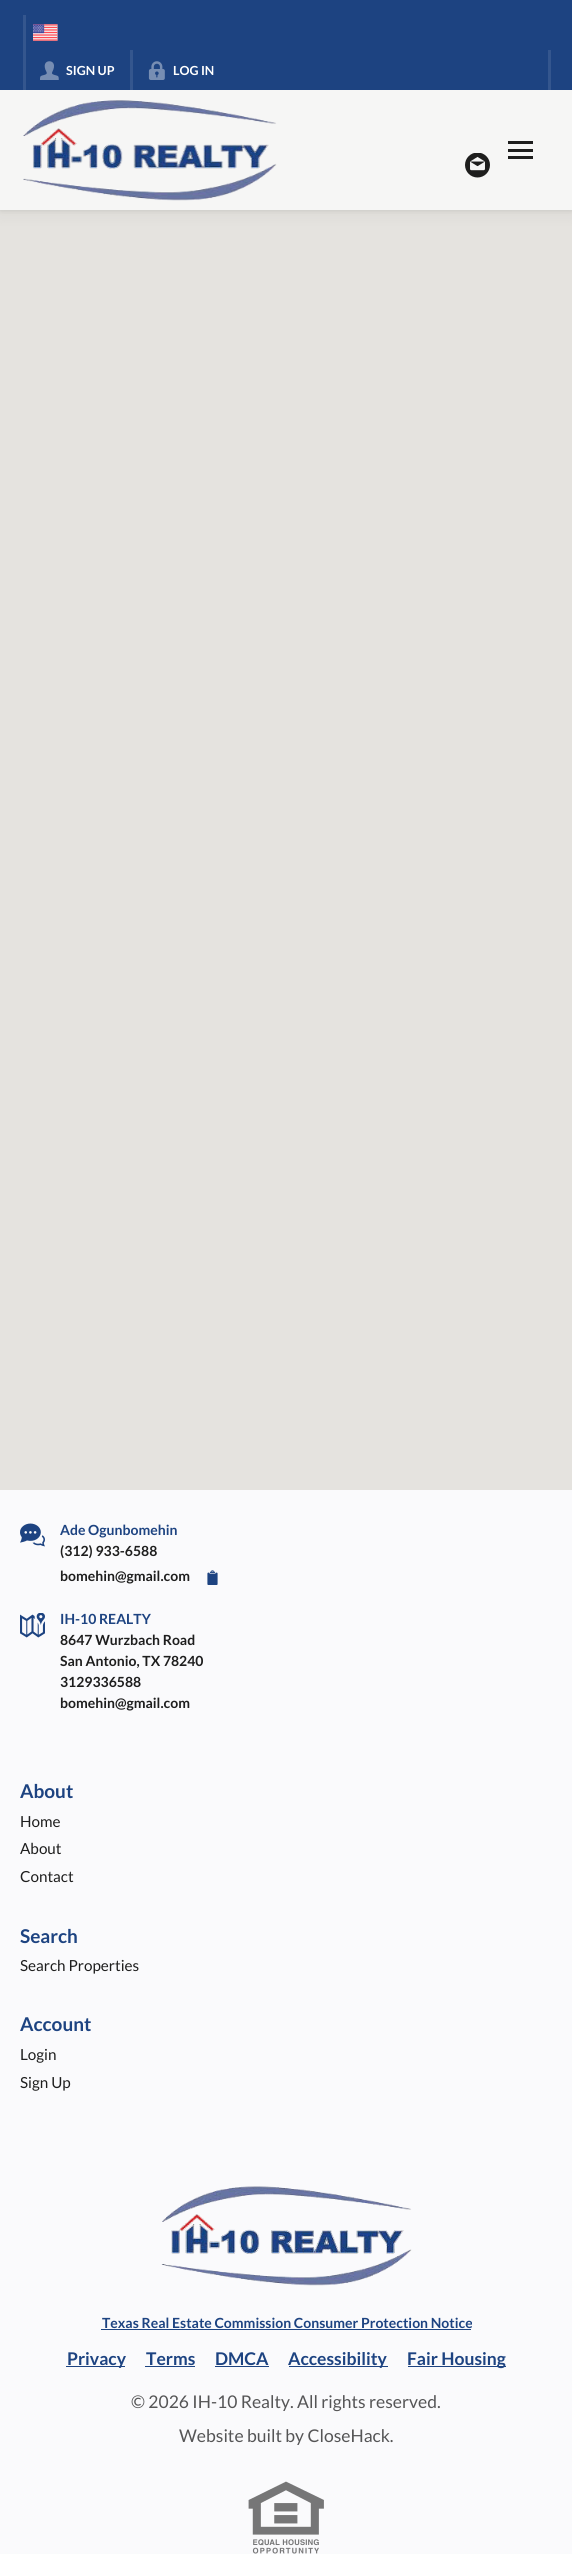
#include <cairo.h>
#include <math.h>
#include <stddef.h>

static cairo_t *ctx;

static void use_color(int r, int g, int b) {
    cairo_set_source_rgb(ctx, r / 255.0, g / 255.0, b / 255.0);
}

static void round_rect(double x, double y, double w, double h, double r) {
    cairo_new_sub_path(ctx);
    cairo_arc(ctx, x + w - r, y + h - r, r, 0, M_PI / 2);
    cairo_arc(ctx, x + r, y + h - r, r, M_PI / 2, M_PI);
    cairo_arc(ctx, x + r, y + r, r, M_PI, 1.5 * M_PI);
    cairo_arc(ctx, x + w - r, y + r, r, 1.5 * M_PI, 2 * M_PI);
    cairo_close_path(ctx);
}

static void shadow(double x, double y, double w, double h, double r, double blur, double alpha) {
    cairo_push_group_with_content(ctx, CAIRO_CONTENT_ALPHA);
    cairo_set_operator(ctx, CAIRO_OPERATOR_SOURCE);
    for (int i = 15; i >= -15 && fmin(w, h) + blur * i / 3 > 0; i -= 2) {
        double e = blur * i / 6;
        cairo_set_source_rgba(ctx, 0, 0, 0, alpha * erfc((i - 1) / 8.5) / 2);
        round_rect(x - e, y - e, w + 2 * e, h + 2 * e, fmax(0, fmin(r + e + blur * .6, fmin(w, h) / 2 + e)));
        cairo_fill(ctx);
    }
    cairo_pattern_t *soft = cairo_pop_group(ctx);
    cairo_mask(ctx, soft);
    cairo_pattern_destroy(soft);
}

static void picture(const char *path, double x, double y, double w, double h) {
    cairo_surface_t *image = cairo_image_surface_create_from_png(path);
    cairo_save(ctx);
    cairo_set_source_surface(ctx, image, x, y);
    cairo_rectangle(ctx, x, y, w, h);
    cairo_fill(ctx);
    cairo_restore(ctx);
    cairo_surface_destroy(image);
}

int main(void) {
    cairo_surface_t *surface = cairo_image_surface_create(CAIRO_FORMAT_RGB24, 572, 2554);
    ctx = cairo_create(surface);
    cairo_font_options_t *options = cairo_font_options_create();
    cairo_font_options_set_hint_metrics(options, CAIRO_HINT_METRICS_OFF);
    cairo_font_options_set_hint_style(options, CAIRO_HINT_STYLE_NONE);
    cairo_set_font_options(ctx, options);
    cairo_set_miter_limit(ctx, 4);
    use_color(250, 250, 252);
    cairo_paint(ctx);
    use_color(229, 227, 223);
    cairo_rectangle(ctx, 0, 210, 572, 1280);
    cairo_fill(ctx);
    use_color(0, 0, 0);
    shadow(0, 95, 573, 120, 0, 7.5, 0.05);
    shadow(0, 91, 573, 120, 0, 2, 0.08);
    use_color(29, 67, 129);
    cairo_rectangle(ctx, 0, 0, 572, 90);
    cairo_fill(ctx);
    use_color(52, 86, 142);
    cairo_rectangle(ctx, 23, 15, 3, 75);
    cairo_fill(ctx);
    picture("img1.png", 33, 24, 25, 17);
    cairo_rectangle(ctx, 548, 50, 3, 40);
    cairo_fill(ctx);
    picture("img2.png", 40, 61, 19, 19);
    cairo_select_font_face(ctx, "Lato", CAIRO_FONT_SLANT_NORMAL, CAIRO_FONT_WEIGHT_BOLD);
    cairo_set_font_size(ctx, 12.5);
    use_color(255, 255, 255);
    cairo_move_to(ctx, 66, 75);
    cairo_show_text(ctx, "SIGN UP");
    use_color(52, 86, 142);
    cairo_rectangle(ctx, 130, 50, 3, 40);
    cairo_fill(ctx);
    picture("img3.png", 148, 61, 17, 19);
    use_color(255, 255, 255);
    cairo_move_to(ctx, 173, 75);
    cairo_show_text(ctx, "LOG IN");
    use_color(246, 246, 245);
    cairo_rectangle(ctx, 0, 90, 572, 120);
    cairo_fill(ctx);
    picture("img4.png", 23, 100, 254, 101);
    use_color(30, 30, 29);
    cairo_rectangle(ctx, 508, 141, 25, 3);
    cairo_fill(ctx);
    cairo_rectangle(ctx, 508, 149, 25, 3);
    cairo_fill(ctx);
    cairo_rectangle(ctx, 508, 156, 25, 3);
    cairo_fill(ctx);
    picture("img5.png", 465, 153, 25, 25);
    picture("img6.png", 20, 1523, 25, 24);
    cairo_set_font_size(ctx, 14);
    use_color(29, 67, 129);
    cairo_move_to(ctx, 60, 1535);
    cairo_show_text(ctx, "Ade Ogunbomehin");
    use_color(30, 30, 30);
    cairo_move_to(ctx, 60, 1556);
    cairo_show_text(ctx, "(312) 933-6588");
    cairo_move_to(ctx, 60, 1581);
    cairo_show_text(ctx, "bomehin@gmail.com");
    picture("img7.png", 207, 1570, 11, 15);
    picture("img8.png", 20, 1613, 25, 25);
    use_color(29, 67, 129);
    cairo_move_to(ctx, 60, 1624);
    cairo_show_text(ctx, "IH-10 REALTY");
    use_color(30, 30, 30);
    cairo_move_to(ctx, 60, 1645);
    cairo_show_text(ctx, "8647 Wurzbach Road");
    cairo_move_to(ctx, 60, 1666);
    cairo_show_text(ctx, "San Antonio, TX 78240");
    cairo_move_to(ctx, 60, 1687);
    cairo_show_text(ctx, "3129336588");
    cairo_move_to(ctx, 60, 1708);
    cairo_show_text(ctx, "bomehin@gmail.com");
    cairo_set_font_size(ctx, 19);
    use_color(29, 67, 129);
    cairo_move_to(ctx, 20, 1798);
    cairo_show_text(ctx, "About");
    cairo_select_font_face(ctx, "Lato", CAIRO_FONT_SLANT_NORMAL, CAIRO_FONT_WEIGHT_NORMAL);
    cairo_set_font_size(ctx, 15.25);
    use_color(30, 30, 30);
    cairo_move_to(ctx, 20, 1827);
    cairo_show_text(ctx, "Home");
    cairo_move_to(ctx, 20, 1854);
    cairo_show_text(ctx, "About");
    cairo_move_to(ctx, 20, 1882);
    cairo_show_text(ctx, "Contact");
    cairo_select_font_face(ctx, "Lato", CAIRO_FONT_SLANT_NORMAL, CAIRO_FONT_WEIGHT_BOLD);
    cairo_set_font_size(ctx, 19);
    use_color(29, 67, 129);
    cairo_move_to(ctx, 20, 1943);
    cairo_show_text(ctx, "Search");
    cairo_select_font_face(ctx, "Lato", CAIRO_FONT_SLANT_NORMAL, CAIRO_FONT_WEIGHT_NORMAL);
    cairo_set_font_size(ctx, 15.25);
    use_color(30, 30, 30);
    cairo_move_to(ctx, 20, 1971);
    cairo_show_text(ctx, "Search Properties");
    cairo_select_font_face(ctx, "Lato", CAIRO_FONT_SLANT_NORMAL, CAIRO_FONT_WEIGHT_BOLD);
    cairo_set_font_size(ctx, 19);
    use_color(29, 67, 129);
    cairo_move_to(ctx, 20, 2031);
    cairo_show_text(ctx, "Account");
    cairo_select_font_face(ctx, "Lato", CAIRO_FONT_SLANT_NORMAL, CAIRO_FONT_WEIGHT_NORMAL);
    cairo_set_font_size(ctx, 15.25);
    use_color(30, 30, 30);
    cairo_move_to(ctx, 20, 2060);
    cairo_show_text(ctx, "Login");
    cairo_move_to(ctx, 20, 2088);
    cairo_show_text(ctx, "Sign Up");
    picture("img9.png", 161, 2186, 251, 100);
    cairo_select_font_face(ctx, "Lato", CAIRO_FONT_SLANT_NORMAL, CAIRO_FONT_WEIGHT_BOLD);
    cairo_set_font_size(ctx, 14);
    use_color(29, 67, 129);
    cairo_move_to(ctx, 102, 2328);
    cairo_show_text(ctx, "Texas Real Estate Commission Consumer Protection Notice");
    cairo_rectangle(ctx, 101, 2329, 370, 1);
    cairo_fill(ctx);
    cairo_rectangle(ctx, 66, 2366, 59, 1);
    cairo_fill(ctx);
    cairo_set_font_size(ctx, 17.5);
    cairo_move_to(ctx, 67, 2365);
    cairo_show_text(ctx, "Privacy");
    cairo_move_to(ctx, 146, 2365);
    cairo_show_text(ctx, "Terms");
    cairo_rectangle(ctx, 145, 2366, 50, 1);
    cairo_fill(ctx);
    cairo_move_to(ctx, 215, 2365);
    cairo_show_text(ctx, "DMCA");
    cairo_rectangle(ctx, 215, 2366, 54, 1);
    cairo_fill(ctx);
    cairo_rectangle(ctx, 289, 2366, 99, 1);
    cairo_fill(ctx);
    cairo_move_to(ctx, 288, 2365);
    cairo_show_text(ctx, "Accessibility");
    cairo_rectangle(ctx, 408, 2366, 98, 1);
    cairo_fill(ctx);
    cairo_move_to(ctx, 407, 2365);
    cairo_show_text(ctx, "Fair Housing");
    cairo_select_font_face(ctx, "Lato", CAIRO_FONT_SLANT_NORMAL, CAIRO_FONT_WEIGHT_NORMAL);
    use_color(85, 85, 86);
    cairo_move_to(ctx, 131, 2408);
    cairo_show_text(ctx, "© 2026 IH-10 Realty. All rights reserved.");
    cairo_move_to(ctx, 179, 2442);
    cairo_show_text(ctx, "Website built by CloseHack.");
    picture("img10.png", 248, 2481, 76, 73);
    cairo_surface_write_to_png(surface, "result.png");
    cairo_font_options_destroy(options);
    cairo_destroy(ctx);
    cairo_surface_destroy(surface);
    return 0;
}
